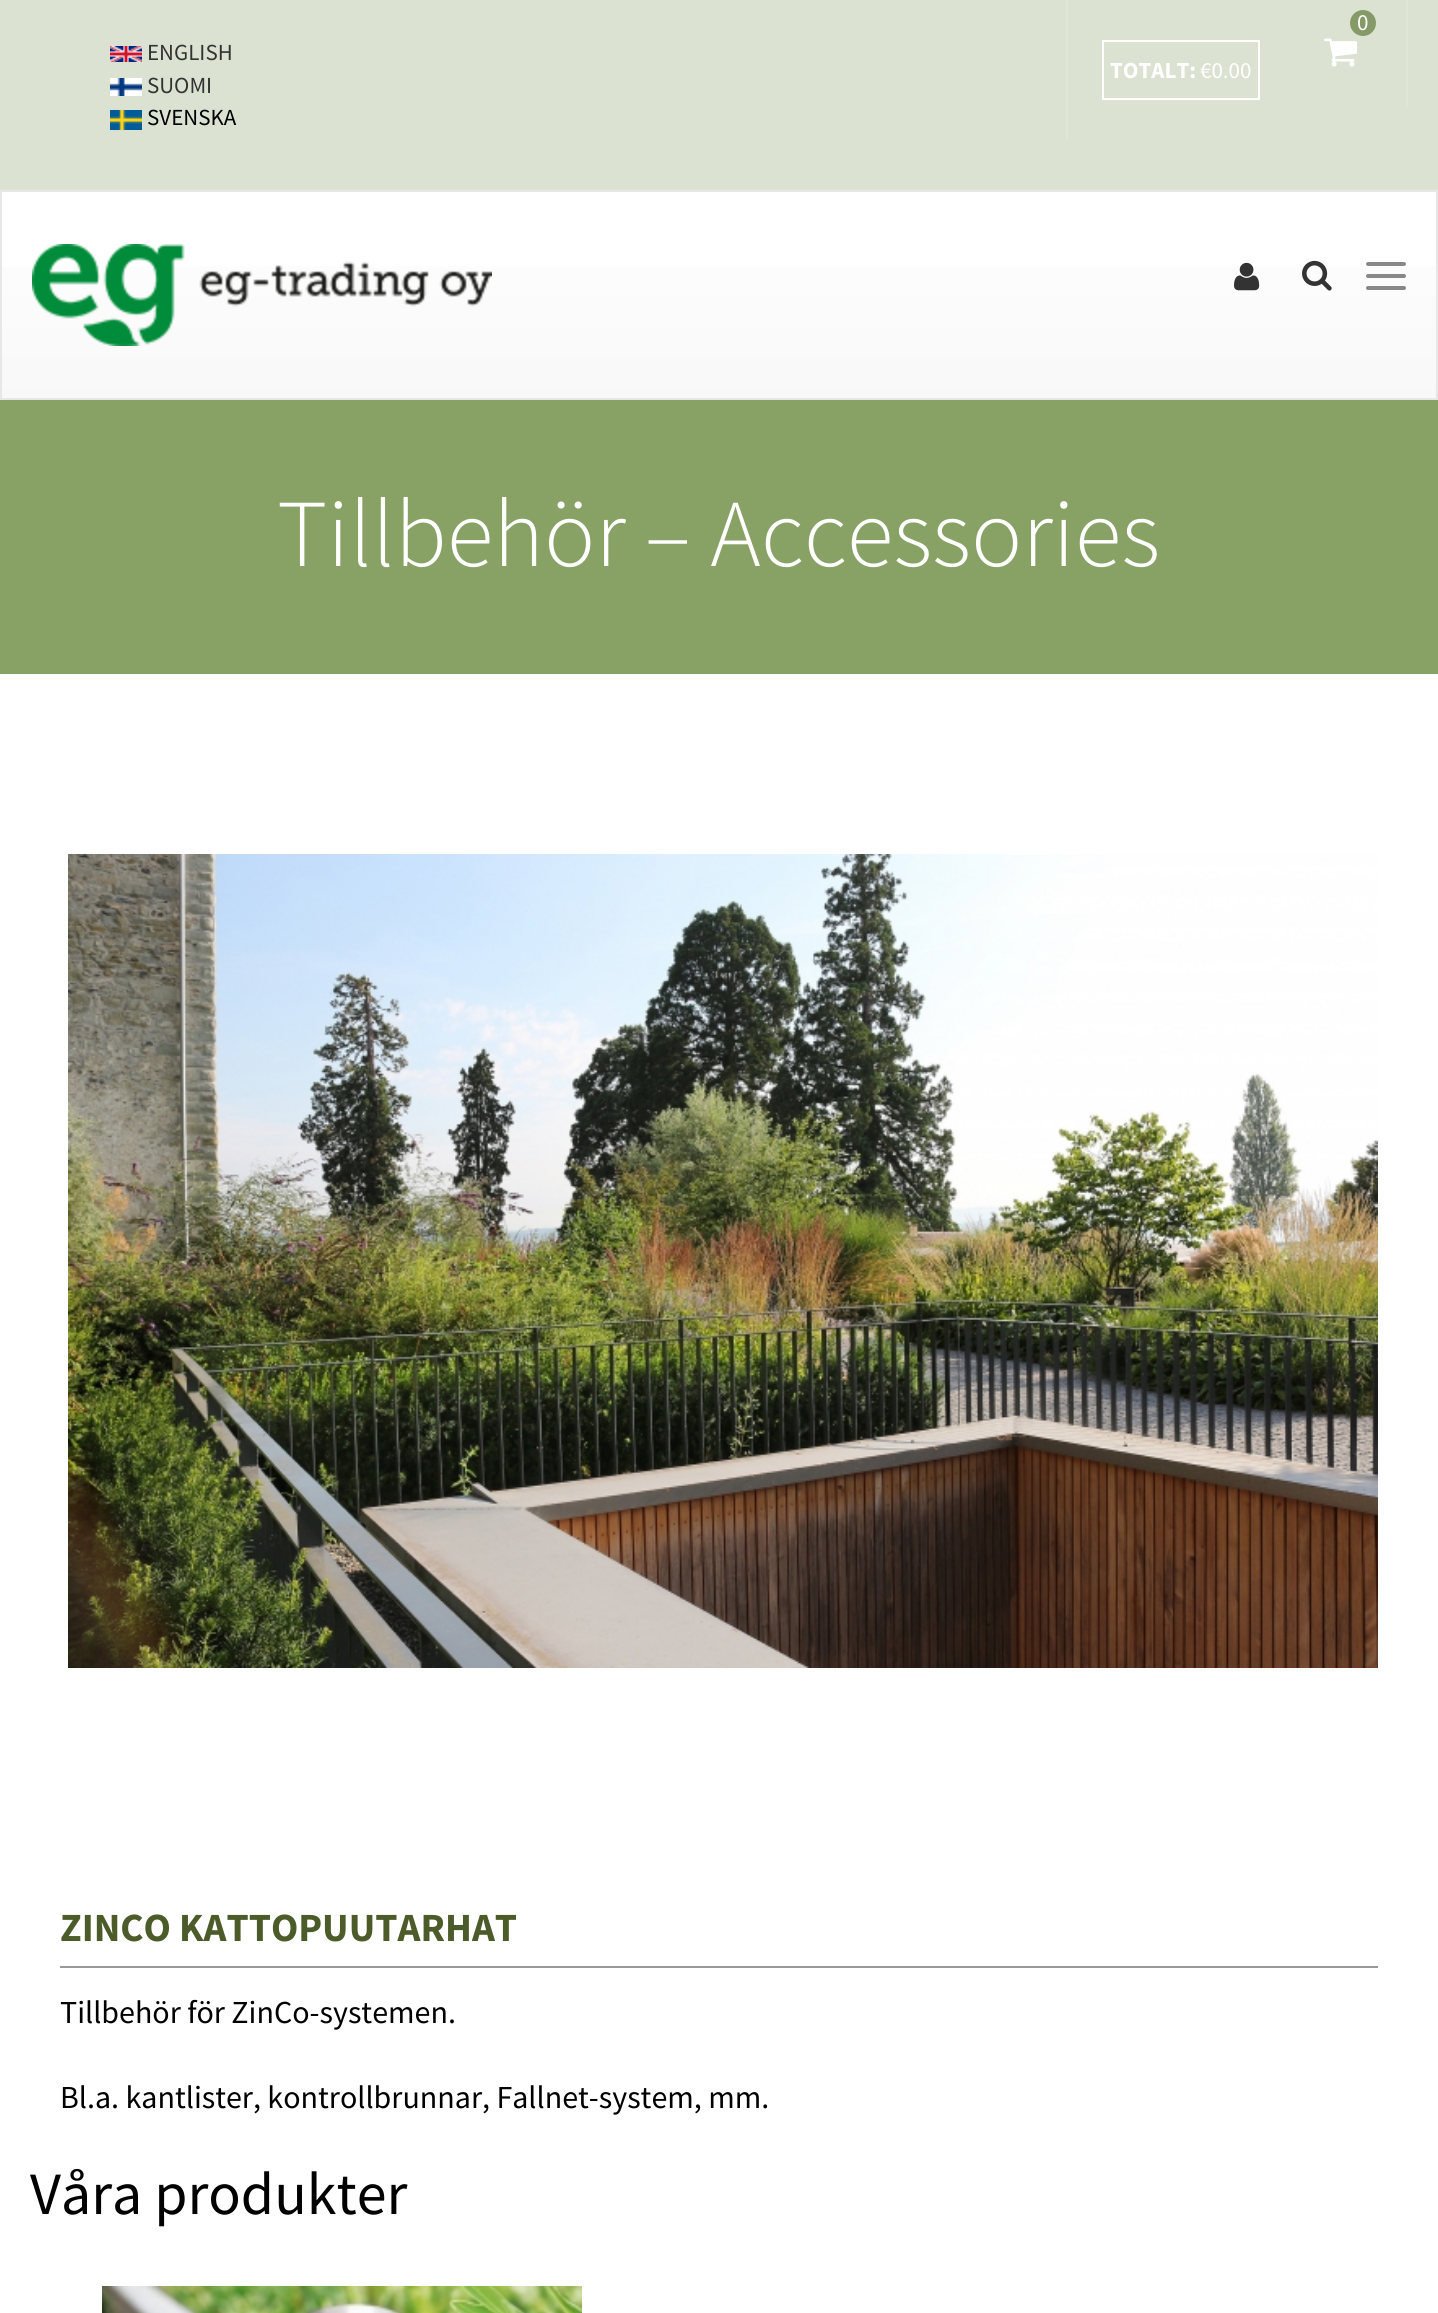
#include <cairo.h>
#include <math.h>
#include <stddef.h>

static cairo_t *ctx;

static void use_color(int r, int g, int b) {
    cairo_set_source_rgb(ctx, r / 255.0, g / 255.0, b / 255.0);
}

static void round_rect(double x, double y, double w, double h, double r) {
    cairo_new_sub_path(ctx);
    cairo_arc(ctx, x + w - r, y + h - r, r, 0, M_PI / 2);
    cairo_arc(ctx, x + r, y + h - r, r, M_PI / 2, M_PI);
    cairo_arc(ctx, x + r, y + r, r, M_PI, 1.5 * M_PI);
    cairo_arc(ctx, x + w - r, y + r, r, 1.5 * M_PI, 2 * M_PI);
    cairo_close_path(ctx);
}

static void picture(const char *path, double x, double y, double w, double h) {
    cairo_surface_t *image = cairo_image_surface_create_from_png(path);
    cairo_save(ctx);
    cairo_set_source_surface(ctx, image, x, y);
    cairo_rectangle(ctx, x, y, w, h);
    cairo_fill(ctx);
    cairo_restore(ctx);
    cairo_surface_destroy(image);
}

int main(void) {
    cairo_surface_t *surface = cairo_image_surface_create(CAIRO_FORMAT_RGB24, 1438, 2313);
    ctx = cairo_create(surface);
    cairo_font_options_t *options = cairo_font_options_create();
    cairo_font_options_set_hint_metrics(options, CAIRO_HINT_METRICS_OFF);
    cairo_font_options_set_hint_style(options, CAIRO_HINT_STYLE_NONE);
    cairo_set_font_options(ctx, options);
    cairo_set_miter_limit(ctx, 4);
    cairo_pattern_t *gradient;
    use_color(255, 255, 255);
    cairo_paint(ctx);
    use_color(219, 226, 210);
    cairo_rectangle(ctx, 0, 0, 1438, 190);
    cairo_fill(ctx);
    use_color(223, 229, 215);
    cairo_rectangle(ctx, 1406, 0, 2, 108);
    cairo_fill(ctx);
    use_color(133, 154, 102);
    cairo_arc(ctx, 1363, 23, 13, 0, 2 * M_PI);
    cairo_fill(ctx);
    cairo_select_font_face(ctx, "Source Sans Pro", CAIRO_FONT_SLANT_NORMAL, CAIRO_FONT_WEIGHT_NORMAL);
    cairo_set_font_size(ctx, 23);
    use_color(255, 255, 255);
    cairo_move_to(ctx, 1357, 30);
    cairo_show_text(ctx, "0");
    picture("img1.png", 1324, 38, 33, 29);
    picture("img2.png", 110, 46, 32, 16);
    use_color(51, 51, 51);
    cairo_move_to(ctx, 147, 60);
    cairo_show_text(ctx, "ENGLISH");
    picture("img3.png", 110, 78, 32, 18);
    cairo_move_to(ctx, 147, 93);
    cairo_show_text(ctx, "SUOMI");
    picture("img4.png", 110, 110, 32, 20);
    use_color(0, 0, 0);
    cairo_move_to(ctx, 147, 125);
    cairo_show_text(ctx, "SVENSKA");
    use_color(223, 229, 215);
    cairo_rectangle(ctx, 1066, 0, 2, 140);
    cairo_fill(ctx);
    cairo_rectangle(ctx, 1103, 41, 156, 58);
    use_color(255, 255, 255);
    cairo_stroke(ctx);
    cairo_select_font_face(ctx, "Source Sans Pro", CAIRO_FONT_SLANT_NORMAL, CAIRO_FONT_WEIGHT_BOLD);
    cairo_move_to(ctx, 1110, 78);
    cairo_show_text(ctx, "TOTALT:");
    cairo_select_font_face(ctx, "Source Sans Pro", CAIRO_FONT_SLANT_NORMAL, CAIRO_FONT_WEIGHT_NORMAL);
    cairo_move_to(ctx, 1200, 78);
    cairo_show_text(ctx, "€0.00");
    gradient = cairo_pattern_create_linear(719, 192, 719, 398);
    cairo_pattern_add_color_stop_rgba(gradient, 0, 1, 1, 1, 1);
    cairo_pattern_add_color_stop_rgba(gradient, 1, 0.973, 0.973, 0.973, 1);
    cairo_set_source(ctx, gradient);
    cairo_pattern_destroy(gradient);
    cairo_rectangle(ctx, 2, 266, 1434, 132);
    cairo_fill(ctx);
    cairo_rectangle(ctx, 1, 191, 1436, 208);
    use_color(231, 231, 231);
    cairo_stroke(ctx);
    picture("img5.png", 32, 244, 460, 102);
    picture("img6.png", 1234, 262, 26, 29);
    picture("img7.png", 1302, 260, 30, 31);
    use_color(136, 136, 136);
    round_rect(1366, 262, 40, 4, 2);
    cairo_fill(ctx);
    round_rect(1366, 274, 40, 4, 2);
    cairo_fill(ctx);
    round_rect(1366, 286, 40, 4, 2);
    cairo_fill(ctx);
    use_color(136, 161, 101);
    cairo_rectangle(ctx, 0, 400, 1438, 274);
    cairo_fill(ctx);
    cairo_select_font_face(ctx, "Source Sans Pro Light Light", CAIRO_FONT_SLANT_NORMAL, CAIRO_FONT_WEIGHT_NORMAL);
    cairo_set_font_size(ctx, 96);
    use_color(255, 255, 255);
    cairo_move_to(ctx, 277, 566);
    cairo_show_text(ctx, "Tillbehör – Accessories");
    picture("img8.png", 68, 854, 1310, 814);
    use_color(153, 153, 153);
    cairo_rectangle(ctx, 60, 1966, 1318, 2);
    cairo_fill(ctx);
    cairo_select_font_face(ctx, "Source Sans Pro", CAIRO_FONT_SLANT_NORMAL, CAIRO_FONT_WEIGHT_BOLD);
    cairo_set_font_size(ctx, 40);
    use_color(75, 91, 41);
    cairo_move_to(ctx, 60, 1941);
    cairo_show_text(ctx, "ZINCO KATTOPUUTARHAT");
    cairo_select_font_face(ctx, "Source Sans Pro", CAIRO_FONT_SLANT_NORMAL, CAIRO_FONT_WEIGHT_NORMAL);
    cairo_set_font_size(ctx, 32);
    use_color(0, 0, 0);
    cairo_move_to(ctx, 60, 2023);
    cairo_show_text(ctx, "Tillbehör för ZinCo-systemen.");
    cairo_move_to(ctx, 60, 2108);
    cairo_show_text(ctx, "Bl.a. kantlister, kontrollbrunnar, Fallnet-system, mm.");
    cairo_set_font_size(ctx, 60);
    cairo_move_to(ctx, 30, 2214);
    cairo_show_text(ctx, "Våra produkter");
    picture("img9.png", 102, 2286, 480, 27);
    cairo_surface_write_to_png(surface, "result.png");
    cairo_font_options_destroy(options);
    cairo_destroy(ctx);
    cairo_surface_destroy(surface);
    return 0;
}
